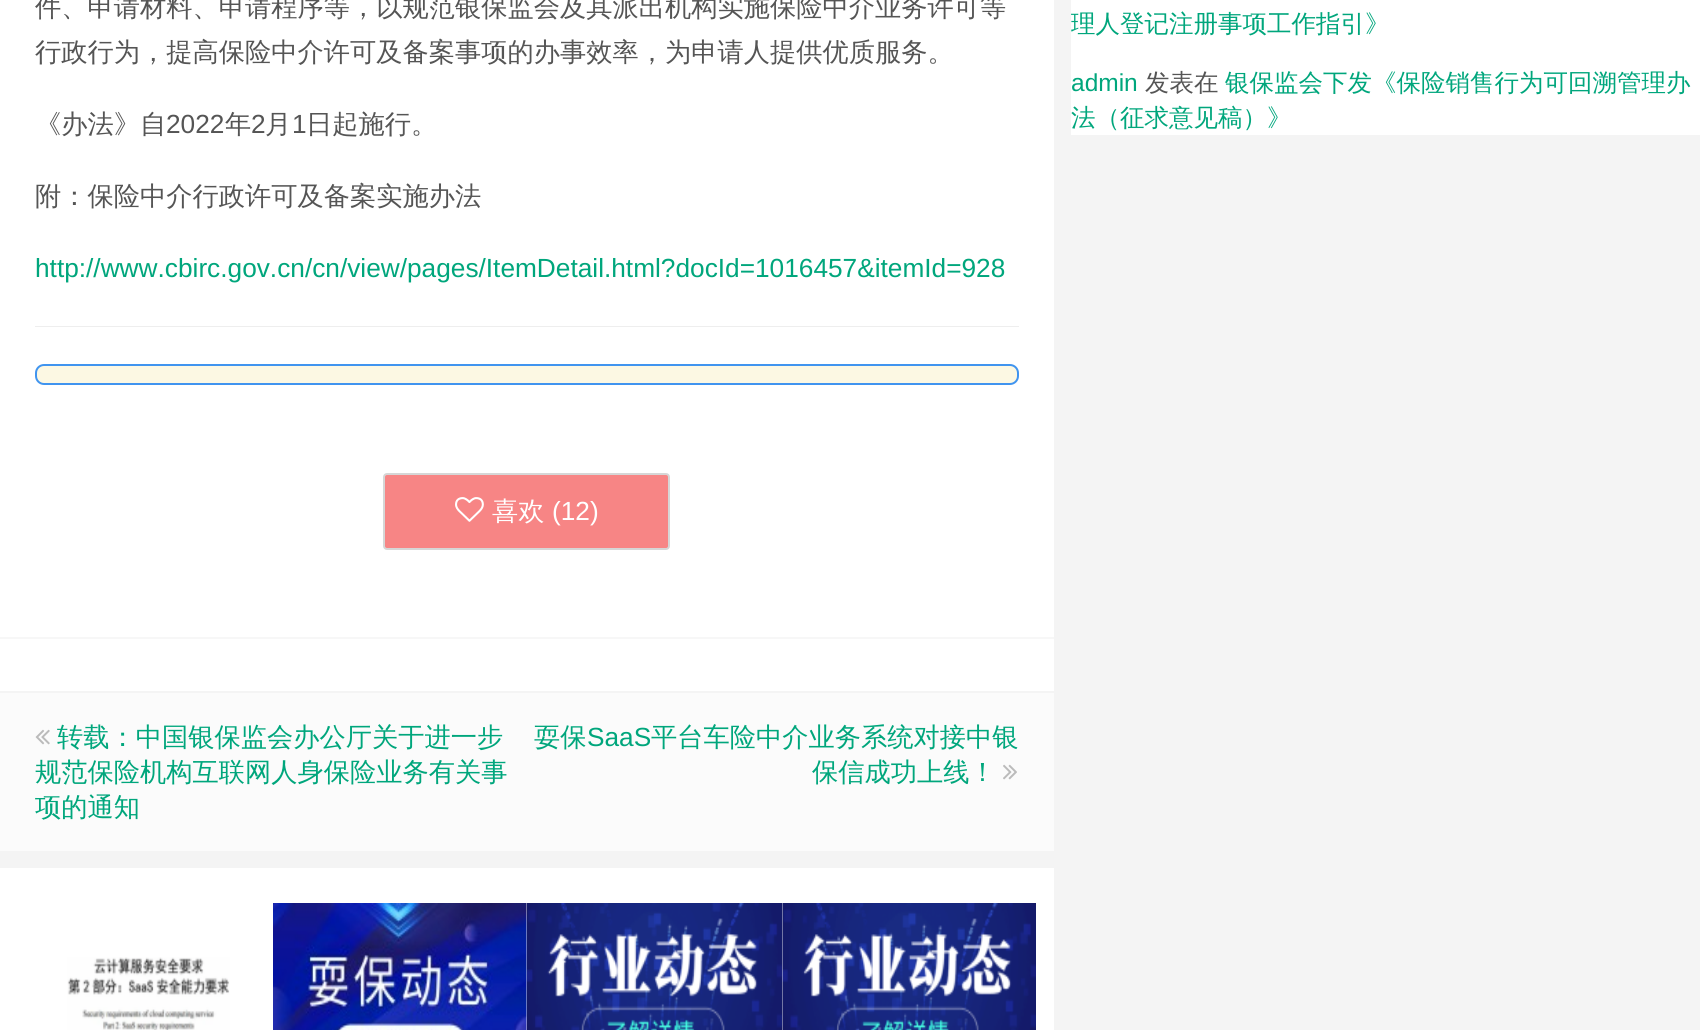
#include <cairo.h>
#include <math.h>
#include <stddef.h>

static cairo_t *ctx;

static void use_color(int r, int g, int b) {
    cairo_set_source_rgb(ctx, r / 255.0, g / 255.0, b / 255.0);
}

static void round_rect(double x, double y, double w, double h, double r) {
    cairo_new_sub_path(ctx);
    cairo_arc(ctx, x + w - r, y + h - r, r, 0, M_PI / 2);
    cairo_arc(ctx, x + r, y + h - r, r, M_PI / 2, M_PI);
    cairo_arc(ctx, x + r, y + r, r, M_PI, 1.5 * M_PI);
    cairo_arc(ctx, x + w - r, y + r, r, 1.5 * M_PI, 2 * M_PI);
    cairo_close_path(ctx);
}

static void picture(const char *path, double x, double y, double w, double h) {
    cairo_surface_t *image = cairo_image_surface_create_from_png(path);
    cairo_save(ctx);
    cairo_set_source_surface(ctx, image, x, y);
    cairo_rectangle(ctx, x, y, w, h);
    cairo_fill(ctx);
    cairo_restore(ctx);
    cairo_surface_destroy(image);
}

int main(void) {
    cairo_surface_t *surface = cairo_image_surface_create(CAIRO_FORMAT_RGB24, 1700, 1030);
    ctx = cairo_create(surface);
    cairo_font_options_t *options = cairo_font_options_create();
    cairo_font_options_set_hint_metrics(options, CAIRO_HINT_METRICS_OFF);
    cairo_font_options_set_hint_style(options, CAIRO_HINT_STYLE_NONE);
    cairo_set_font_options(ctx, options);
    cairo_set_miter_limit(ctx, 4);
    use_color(244, 244, 244);
    cairo_paint(ctx);
    use_color(255, 255, 255);
    cairo_rectangle(ctx, 0, 0, 1054, 637);
    cairo_fill(ctx);
    cairo_select_font_face(ctx, "WenQuanYi Zen Hei Medium", CAIRO_FONT_SLANT_NORMAL, CAIRO_FONT_WEIGHT_NORMAL);
    cairo_set_font_size(ctx, 26.25);
    use_color(85, 85, 85);
    cairo_move_to(ctx, 35, 16);
    cairo_show_text(ctx, "件、申请材料、申请程序等，以规范银保监会及其派出机构实施保险中介业务许可等");
    cairo_move_to(ctx, 35, 61);
    cairo_show_text(ctx, "行政行为，提高保险中介许可及备案事项的办事效率，为申请人提供优质服务。");
    cairo_move_to(ctx, 35, 133);
    cairo_show_text(ctx, "《办法》自");
    cairo_select_font_face(ctx, "Liberation Sans", CAIRO_FONT_SLANT_NORMAL, CAIRO_FONT_WEIGHT_NORMAL);
    cairo_move_to(ctx, 166, 133);
    cairo_show_text(ctx, "2022");
    cairo_select_font_face(ctx, "WenQuanYi Zen Hei Medium", CAIRO_FONT_SLANT_NORMAL, CAIRO_FONT_WEIGHT_NORMAL);
    cairo_move_to(ctx, 225, 133);
    cairo_show_text(ctx, "年");
    cairo_select_font_face(ctx, "Liberation Sans", CAIRO_FONT_SLANT_NORMAL, CAIRO_FONT_WEIGHT_NORMAL);
    cairo_move_to(ctx, 251, 133);
    cairo_show_text(ctx, "2");
    cairo_select_font_face(ctx, "WenQuanYi Zen Hei Medium", CAIRO_FONT_SLANT_NORMAL, CAIRO_FONT_WEIGHT_NORMAL);
    cairo_move_to(ctx, 265, 133);
    cairo_show_text(ctx, "月");
    cairo_select_font_face(ctx, "Liberation Sans", CAIRO_FONT_SLANT_NORMAL, CAIRO_FONT_WEIGHT_NORMAL);
    cairo_move_to(ctx, 292, 133);
    cairo_show_text(ctx, "1");
    cairo_select_font_face(ctx, "WenQuanYi Zen Hei Medium", CAIRO_FONT_SLANT_NORMAL, CAIRO_FONT_WEIGHT_NORMAL);
    cairo_move_to(ctx, 306, 133);
    cairo_show_text(ctx, "日起施行。");
    cairo_move_to(ctx, 35, 205);
    cairo_show_text(ctx, "附：保险中介行政许可及备案实施办法");
    cairo_select_font_face(ctx, "Liberation Sans", CAIRO_FONT_SLANT_NORMAL, CAIRO_FONT_WEIGHT_NORMAL);
    use_color(0, 166, 124);
    cairo_move_to(ctx, 35, 277);
    cairo_show_text(ctx, "http://www.cbirc.gov.cn/cn/view/pages/ItemDetail.html?docId=1016457&itemId=928");
    use_color(238, 238, 238);
    cairo_rectangle(ctx, 35, 326, 984, 1);
    cairo_fill(ctx);
    use_color(252, 248, 227);
    round_rect(36, 365, 982, 19, 8);
    cairo_fill_preserve(ctx);
    use_color(64, 148, 239);
    cairo_stroke(ctx);
    use_color(247, 133, 133);
    round_rect(384, 474, 285, 75, 3);
    cairo_fill_preserve(ctx);
    use_color(214, 214, 214);
    cairo_stroke(ctx);
    picture("img1.png", 455, 497, 29, 25);
    cairo_select_font_face(ctx, "WenQuanYi Zen Hei Medium", CAIRO_FONT_SLANT_NORMAL, CAIRO_FONT_WEIGHT_NORMAL);
    use_color(255, 255, 255);
    cairo_move_to(ctx, 492, 520);
    cairo_show_text(ctx, "喜欢");
    cairo_select_font_face(ctx, "Liberation Sans", CAIRO_FONT_SLANT_NORMAL, CAIRO_FONT_WEIGHT_NORMAL);
    cairo_move_to(ctx, 552, 520);
    cairo_show_text(ctx, "(12)");
    cairo_rectangle(ctx, 0, 639, 1054, 52);
    cairo_fill(ctx);
    use_color(247, 247, 247);
    cairo_rectangle(ctx, 0, 637, 1054, 2);
    cairo_fill(ctx);
    use_color(251, 251, 251);
    cairo_rectangle(ctx, 0, 693, 1054, 158);
    cairo_fill(ctx);
    picture("img2.png", 35, 729, 15, 16);
    cairo_select_font_face(ctx, "WenQuanYi Zen Hei Medium", CAIRO_FONT_SLANT_NORMAL, CAIRO_FONT_WEIGHT_NORMAL);
    use_color(0, 166, 124);
    cairo_move_to(ctx, 57, 746);
    cairo_show_text(ctx, "转载：中国银保监会办公厅关于进一步");
    cairo_move_to(ctx, 35, 781);
    cairo_show_text(ctx, "规范保险机构互联网人身保险业务有关事");
    cairo_move_to(ctx, 35, 816);
    cairo_show_text(ctx, "项的通知");
    cairo_move_to(ctx, 534, 746);
    cairo_show_text(ctx, "耍保");
    cairo_select_font_face(ctx, "Liberation Sans", CAIRO_FONT_SLANT_NORMAL, CAIRO_FONT_WEIGHT_NORMAL);
    cairo_move_to(ctx, 587, 746);
    cairo_show_text(ctx, "SaaS");
    cairo_select_font_face(ctx, "WenQuanYi Zen Hei Medium", CAIRO_FONT_SLANT_NORMAL, CAIRO_FONT_WEIGHT_NORMAL);
    cairo_move_to(ctx, 651, 746);
    cairo_show_text(ctx, "平台车险中介业务系统对接中银");
    cairo_move_to(ctx, 812, 781);
    cairo_show_text(ctx, "保信成功上线！");
    picture("img3.png", 1003, 764, 14, 16);
    use_color(255, 255, 255);
    cairo_rectangle(ctx, 0, 868, 1054, 162);
    cairo_fill(ctx);
    picture("img4.png", 67, 957, 163, 73);
    picture("img5.png", 273, 903, 254, 127);
    picture("img6.png", 526, 903, 257, 127);
    picture("img7.png", 782, 903, 254, 127);
    cairo_rectangle(ctx, 1071, 0, 629, 135);
    cairo_fill(ctx);
    cairo_set_font_size(ctx, 24.5);
    use_color(0, 166, 124);
    cairo_move_to(ctx, 1071, 32);
    cairo_show_text(ctx, "理人登记注册事项工作指引》");
    cairo_select_font_face(ctx, "Liberation Sans", CAIRO_FONT_SLANT_NORMAL, CAIRO_FONT_WEIGHT_NORMAL);
    cairo_move_to(ctx, 1071, 91);
    cairo_show_text(ctx, "admin");
    cairo_select_font_face(ctx, "WenQuanYi Zen Hei Medium", CAIRO_FONT_SLANT_NORMAL, CAIRO_FONT_WEIGHT_NORMAL);
    use_color(85, 85, 85);
    cairo_move_to(ctx, 1145, 91);
    cairo_show_text(ctx, "发表在");
    use_color(0, 166, 124);
    cairo_move_to(ctx, 1225, 91);
    cairo_show_text(ctx, "银保监会下发《保险销售行为可回溯管理办");
    cairo_move_to(ctx, 1071, 126);
    cairo_show_text(ctx, "法（征求意见稿）》");
    cairo_surface_write_to_png(surface, "result.png");
    cairo_font_options_destroy(options);
    cairo_destroy(ctx);
    cairo_surface_destroy(surface);
    return 0;
}
